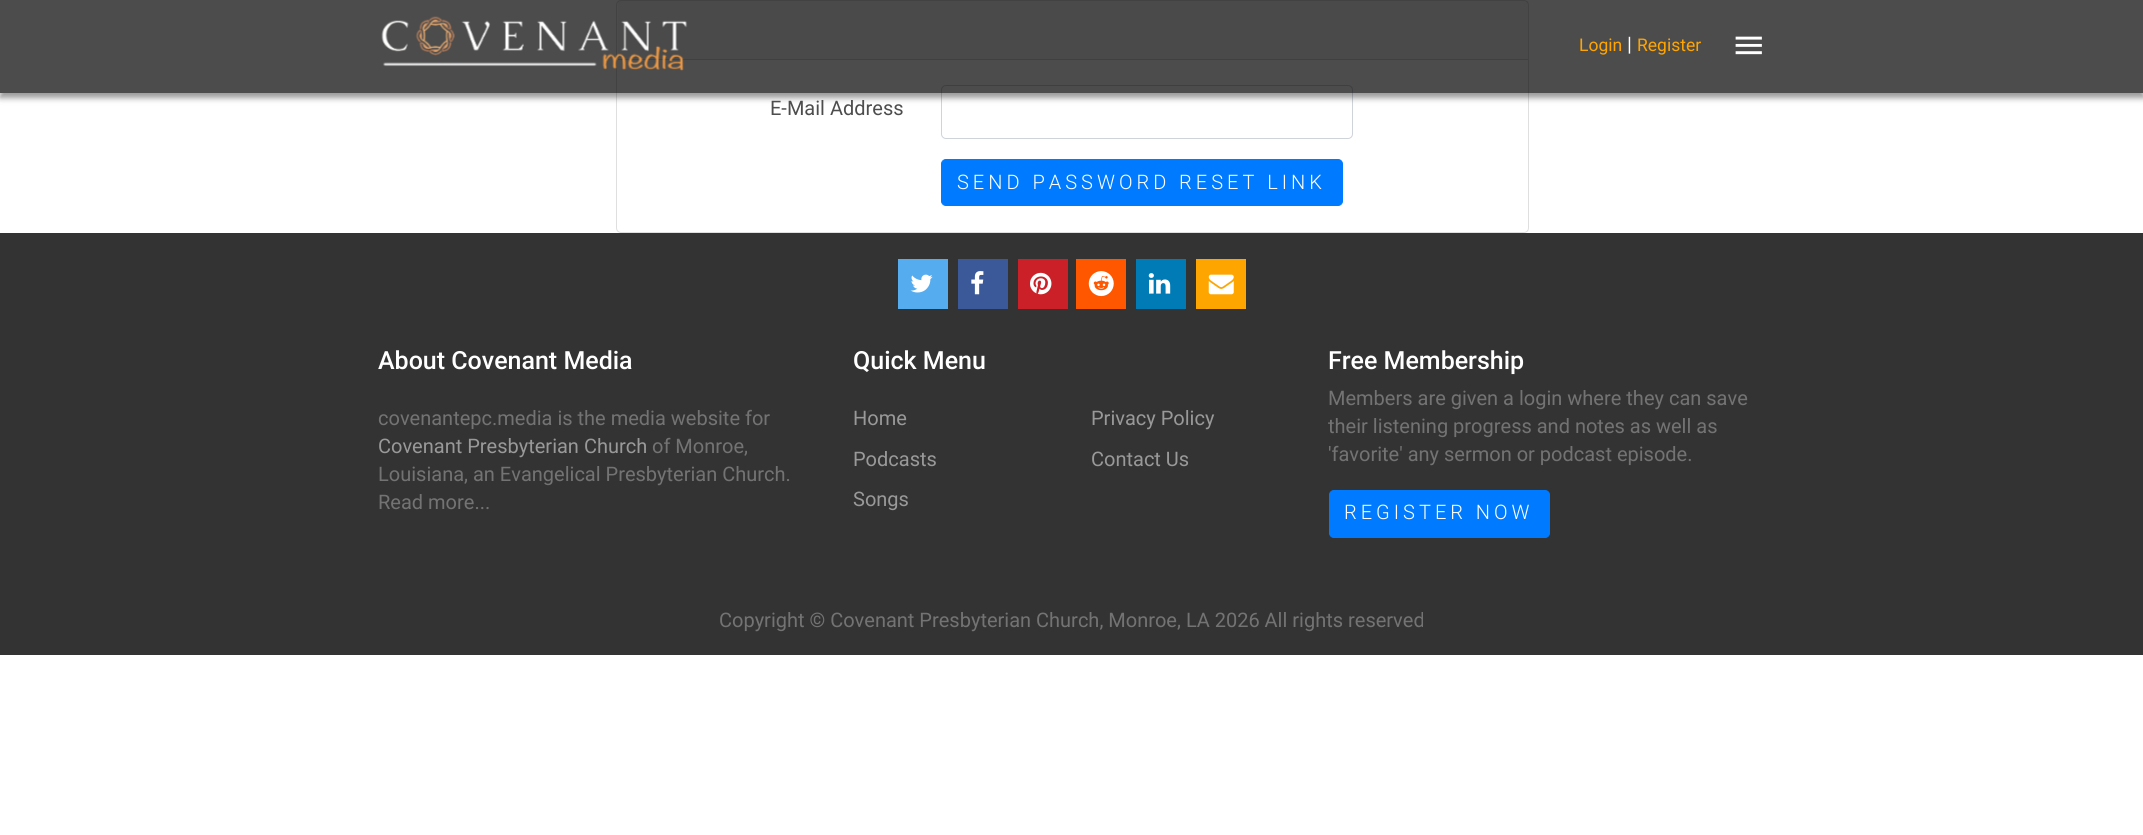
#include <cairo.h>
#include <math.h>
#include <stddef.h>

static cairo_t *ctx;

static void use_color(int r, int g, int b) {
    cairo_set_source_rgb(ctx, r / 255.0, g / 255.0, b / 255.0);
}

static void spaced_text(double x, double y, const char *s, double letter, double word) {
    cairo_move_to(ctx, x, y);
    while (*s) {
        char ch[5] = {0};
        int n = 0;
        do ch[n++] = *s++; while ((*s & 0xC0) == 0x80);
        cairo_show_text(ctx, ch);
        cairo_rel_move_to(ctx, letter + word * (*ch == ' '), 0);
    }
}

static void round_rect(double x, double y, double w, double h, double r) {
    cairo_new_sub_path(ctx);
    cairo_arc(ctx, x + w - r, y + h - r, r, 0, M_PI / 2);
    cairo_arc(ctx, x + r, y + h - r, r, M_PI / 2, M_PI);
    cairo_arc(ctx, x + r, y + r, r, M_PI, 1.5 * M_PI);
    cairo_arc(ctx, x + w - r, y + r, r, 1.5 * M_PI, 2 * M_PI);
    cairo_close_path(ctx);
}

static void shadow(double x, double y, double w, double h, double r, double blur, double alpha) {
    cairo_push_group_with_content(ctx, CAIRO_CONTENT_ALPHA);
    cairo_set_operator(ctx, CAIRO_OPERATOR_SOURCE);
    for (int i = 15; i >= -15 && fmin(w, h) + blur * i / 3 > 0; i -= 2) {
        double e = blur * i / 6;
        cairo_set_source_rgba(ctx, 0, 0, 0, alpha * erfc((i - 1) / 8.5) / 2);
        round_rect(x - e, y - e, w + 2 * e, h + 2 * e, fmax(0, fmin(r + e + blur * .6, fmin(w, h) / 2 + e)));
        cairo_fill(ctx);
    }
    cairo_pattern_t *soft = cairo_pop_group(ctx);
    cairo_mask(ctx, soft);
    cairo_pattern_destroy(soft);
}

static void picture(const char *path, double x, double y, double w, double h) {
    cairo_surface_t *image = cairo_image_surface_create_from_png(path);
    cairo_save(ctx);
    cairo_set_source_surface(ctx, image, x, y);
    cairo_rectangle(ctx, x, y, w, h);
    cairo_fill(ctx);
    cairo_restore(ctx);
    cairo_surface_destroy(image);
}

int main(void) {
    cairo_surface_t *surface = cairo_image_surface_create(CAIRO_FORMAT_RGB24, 2143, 835);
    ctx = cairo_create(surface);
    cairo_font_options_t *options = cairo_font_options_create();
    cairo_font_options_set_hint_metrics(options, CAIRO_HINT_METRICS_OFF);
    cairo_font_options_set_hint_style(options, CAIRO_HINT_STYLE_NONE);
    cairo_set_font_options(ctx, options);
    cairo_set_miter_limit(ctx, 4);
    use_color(255, 255, 255);
    cairo_paint(ctx);
    round_rect(616.5, 0.5, 912, 232, 4.5);
    use_color(223, 223, 223);
    cairo_set_line_width(ctx, 1);
    cairo_stroke(ctx);
    cairo_set_source_rgba(ctx, 0, 0, 0, 0.03);
    cairo_rectangle(ctx, 618, 1, 910, 58);
    cairo_fill(ctx);
    use_color(216, 216, 216);
    cairo_rectangle(ctx, 618, 59, 910, 1);
    cairo_fill(ctx);
    round_rect(941.5, 85.5, 411, 53, 4.5);
    use_color(206, 212, 218);
    cairo_stroke(ctx);
    cairo_save(ctx);
    cairo_set_fill_rule(ctx, CAIRO_FILL_RULE_EVEN_ODD);
    cairo_new_path(ctx);
    cairo_move_to(ctx, 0, 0);
    cairo_line_to(ctx, 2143, 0);
    cairo_line_to(ctx, 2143, 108);
    cairo_line_to(ctx, 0, 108);
    cairo_close_path(ctx);
    cairo_move_to(ctx, 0, 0);
    cairo_line_to(ctx, 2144, 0);
    cairo_line_to(ctx, 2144, 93);
    cairo_line_to(ctx, 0, 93);
    cairo_close_path(ctx);
    cairo_clip(ctx);
    use_color(0, 0, 0);
    shadow(0, 5, 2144, 93, 0, 3, 0.4);
    cairo_restore(ctx);
    cairo_set_source_rgba(ctx, 0, 0, 0, 0.7);
    cairo_rectangle(ctx, 0, 0, 2143, 93);
    cairo_fill(ctx);
    picture("img1.png", 381, 16, 307, 55);
    cairo_select_font_face(ctx, "Roboto", CAIRO_FONT_SLANT_NORMAL, CAIRO_FONT_WEIGHT_NORMAL);
    cairo_set_font_size(ctx, 17.5);
    use_color(255, 165, 0);
    cairo_move_to(ctx, 1579, 51);
    cairo_show_text(ctx, "Login");
    cairo_set_font_size(ctx, 20);
    use_color(255, 255, 255);
    cairo_move_to(ctx, 1627, 51);
    cairo_show_text(ctx, "|");
    cairo_set_font_size(ctx, 17.5);
    use_color(255, 165, 0);
    cairo_move_to(ctx, 1637, 51);
    cairo_show_text(ctx, "Register");
    picture("img2.png", 1735, 36, 27, 19);
    cairo_set_font_size(ctx, 20);
    use_color(77, 77, 77);
    cairo_move_to(ctx, 770, 115);
    cairo_show_text(ctx, "E-Mail Address");
    use_color(0, 123, 255);
    round_rect(941.5, 159.5, 401, 46, 4.5);
    cairo_fill_preserve(ctx);
    cairo_stroke(ctx);
    cairo_select_font_face(ctx, "Roboto Light", CAIRO_FONT_SLANT_NORMAL, CAIRO_FONT_WEIGHT_NORMAL);
    use_color(255, 255, 255);
    spaced_text(957, 189, "SEND PASSWORD RESET LINK", 4, 0);
    use_color(51, 51, 51);
    cairo_rectangle(ctx, 0, 233, 2143, 422);
    cairo_fill(ctx);
    use_color(85, 172, 238);
    cairo_rectangle(ctx, 898, 259, 50, 50);
    cairo_fill(ctx);
    picture("img3.png", 910, 274, 23, 19);
    use_color(59, 89, 152);
    cairo_rectangle(ctx, 958, 259, 50, 50);
    cairo_fill(ctx);
    picture("img4.png", 971, 271, 13, 24);
    use_color(203, 32, 39);
    cairo_rectangle(ctx, 1018, 259, 50, 50);
    cairo_fill(ctx);
    picture("img5.png", 1030, 272, 22, 23);
    use_color(255, 87, 0);
    cairo_rectangle(ctx, 1076, 259, 50, 50);
    cairo_fill(ctx);
    picture("img6.png", 1088, 271, 26, 26);
    use_color(0, 123, 181);
    cairo_rectangle(ctx, 1136, 259, 50, 50);
    cairo_fill(ctx);
    picture("img7.png", 1148, 273, 23, 21);
    use_color(255, 165, 0);
    cairo_rectangle(ctx, 1196, 259, 50, 50);
    cairo_fill(ctx);
    picture("img8.png", 1208, 274, 26, 21);
    cairo_select_font_face(ctx, "Roboto Medium", CAIRO_FONT_SLANT_NORMAL, CAIRO_FONT_WEIGHT_NORMAL);
    cairo_set_font_size(ctx, 25);
    use_color(255, 255, 255);
    cairo_move_to(ctx, 378, 369);
    cairo_show_text(ctx, "About Covenant Media");
    cairo_select_font_face(ctx, "Roboto", CAIRO_FONT_SLANT_NORMAL, CAIRO_FONT_WEIGHT_NORMAL);
    cairo_set_font_size(ctx, 20);
    use_color(115, 115, 115);
    cairo_move_to(ctx, 378, 425);
    cairo_show_text(ctx, "covenantepc.media is the media website for");
    use_color(153, 153, 153);
    cairo_move_to(ctx, 378, 453);
    cairo_show_text(ctx, "Covenant Presbyterian Church");
    use_color(115, 115, 115);
    cairo_move_to(ctx, 652, 453);
    cairo_show_text(ctx, "of Monroe,");
    cairo_move_to(ctx, 378, 481);
    cairo_show_text(ctx, "Louisiana, an Evangelical Presbyterian Church.");
    cairo_move_to(ctx, 378, 509);
    cairo_show_text(ctx, "Read more...");
    cairo_select_font_face(ctx, "Roboto Medium", CAIRO_FONT_SLANT_NORMAL, CAIRO_FONT_WEIGHT_NORMAL);
    cairo_set_font_size(ctx, 25);
    use_color(255, 255, 255);
    cairo_move_to(ctx, 853, 369);
    cairo_show_text(ctx, "Quick Menu");
    cairo_select_font_face(ctx, "Roboto", CAIRO_FONT_SLANT_NORMAL, CAIRO_FONT_WEIGHT_NORMAL);
    cairo_set_font_size(ctx, 20);
    use_color(153, 153, 153);
    cairo_move_to(ctx, 853, 425);
    cairo_show_text(ctx, "Home");
    cairo_move_to(ctx, 853, 466);
    cairo_show_text(ctx, "Podcasts");
    cairo_move_to(ctx, 853, 506);
    cairo_show_text(ctx, "Songs");
    cairo_move_to(ctx, 1091, 425);
    cairo_show_text(ctx, "Privacy Policy");
    cairo_move_to(ctx, 1091, 466);
    cairo_show_text(ctx, "Contact Us");
    cairo_select_font_face(ctx, "Roboto Medium", CAIRO_FONT_SLANT_NORMAL, CAIRO_FONT_WEIGHT_NORMAL);
    cairo_set_font_size(ctx, 25);
    use_color(255, 255, 255);
    cairo_move_to(ctx, 1328, 369);
    cairo_show_text(ctx, "Free Membership");
    cairo_select_font_face(ctx, "Roboto", CAIRO_FONT_SLANT_NORMAL, CAIRO_FONT_WEIGHT_NORMAL);
    cairo_set_font_size(ctx, 20);
    use_color(115, 115, 115);
    cairo_move_to(ctx, 1328, 405);
    cairo_show_text(ctx, "Members are given a login where they can save");
    cairo_move_to(ctx, 1328, 433);
    cairo_show_text(ctx, "their listening progress and notes as well as");
    cairo_move_to(ctx, 1328, 461);
    cairo_show_text(ctx, "'favorite' any sermon or podcast episode.");
    use_color(0, 123, 255);
    round_rect(1329.5, 490.5, 220, 47, 4.5);
    cairo_fill_preserve(ctx);
    cairo_stroke(ctx);
    cairo_select_font_face(ctx, "Roboto Light", CAIRO_FONT_SLANT_NORMAL, CAIRO_FONT_WEIGHT_NORMAL);
    use_color(255, 255, 255);
    spaced_text(1344, 519, "REGISTER NOW", 4, 0);
    cairo_select_font_face(ctx, "Roboto", CAIRO_FONT_SLANT_NORMAL, CAIRO_FONT_WEIGHT_NORMAL);
    use_color(115, 115, 115);
    cairo_move_to(ctx, 719, 627);
    cairo_show_text(ctx, "Copyright © Covenant Presbyterian Church, Monroe, LA 2026 All rights reserved");
    cairo_surface_write_to_png(surface, "result.png");
    cairo_font_options_destroy(options);
    cairo_destroy(ctx);
    cairo_surface_destroy(surface);
    return 0;
}
